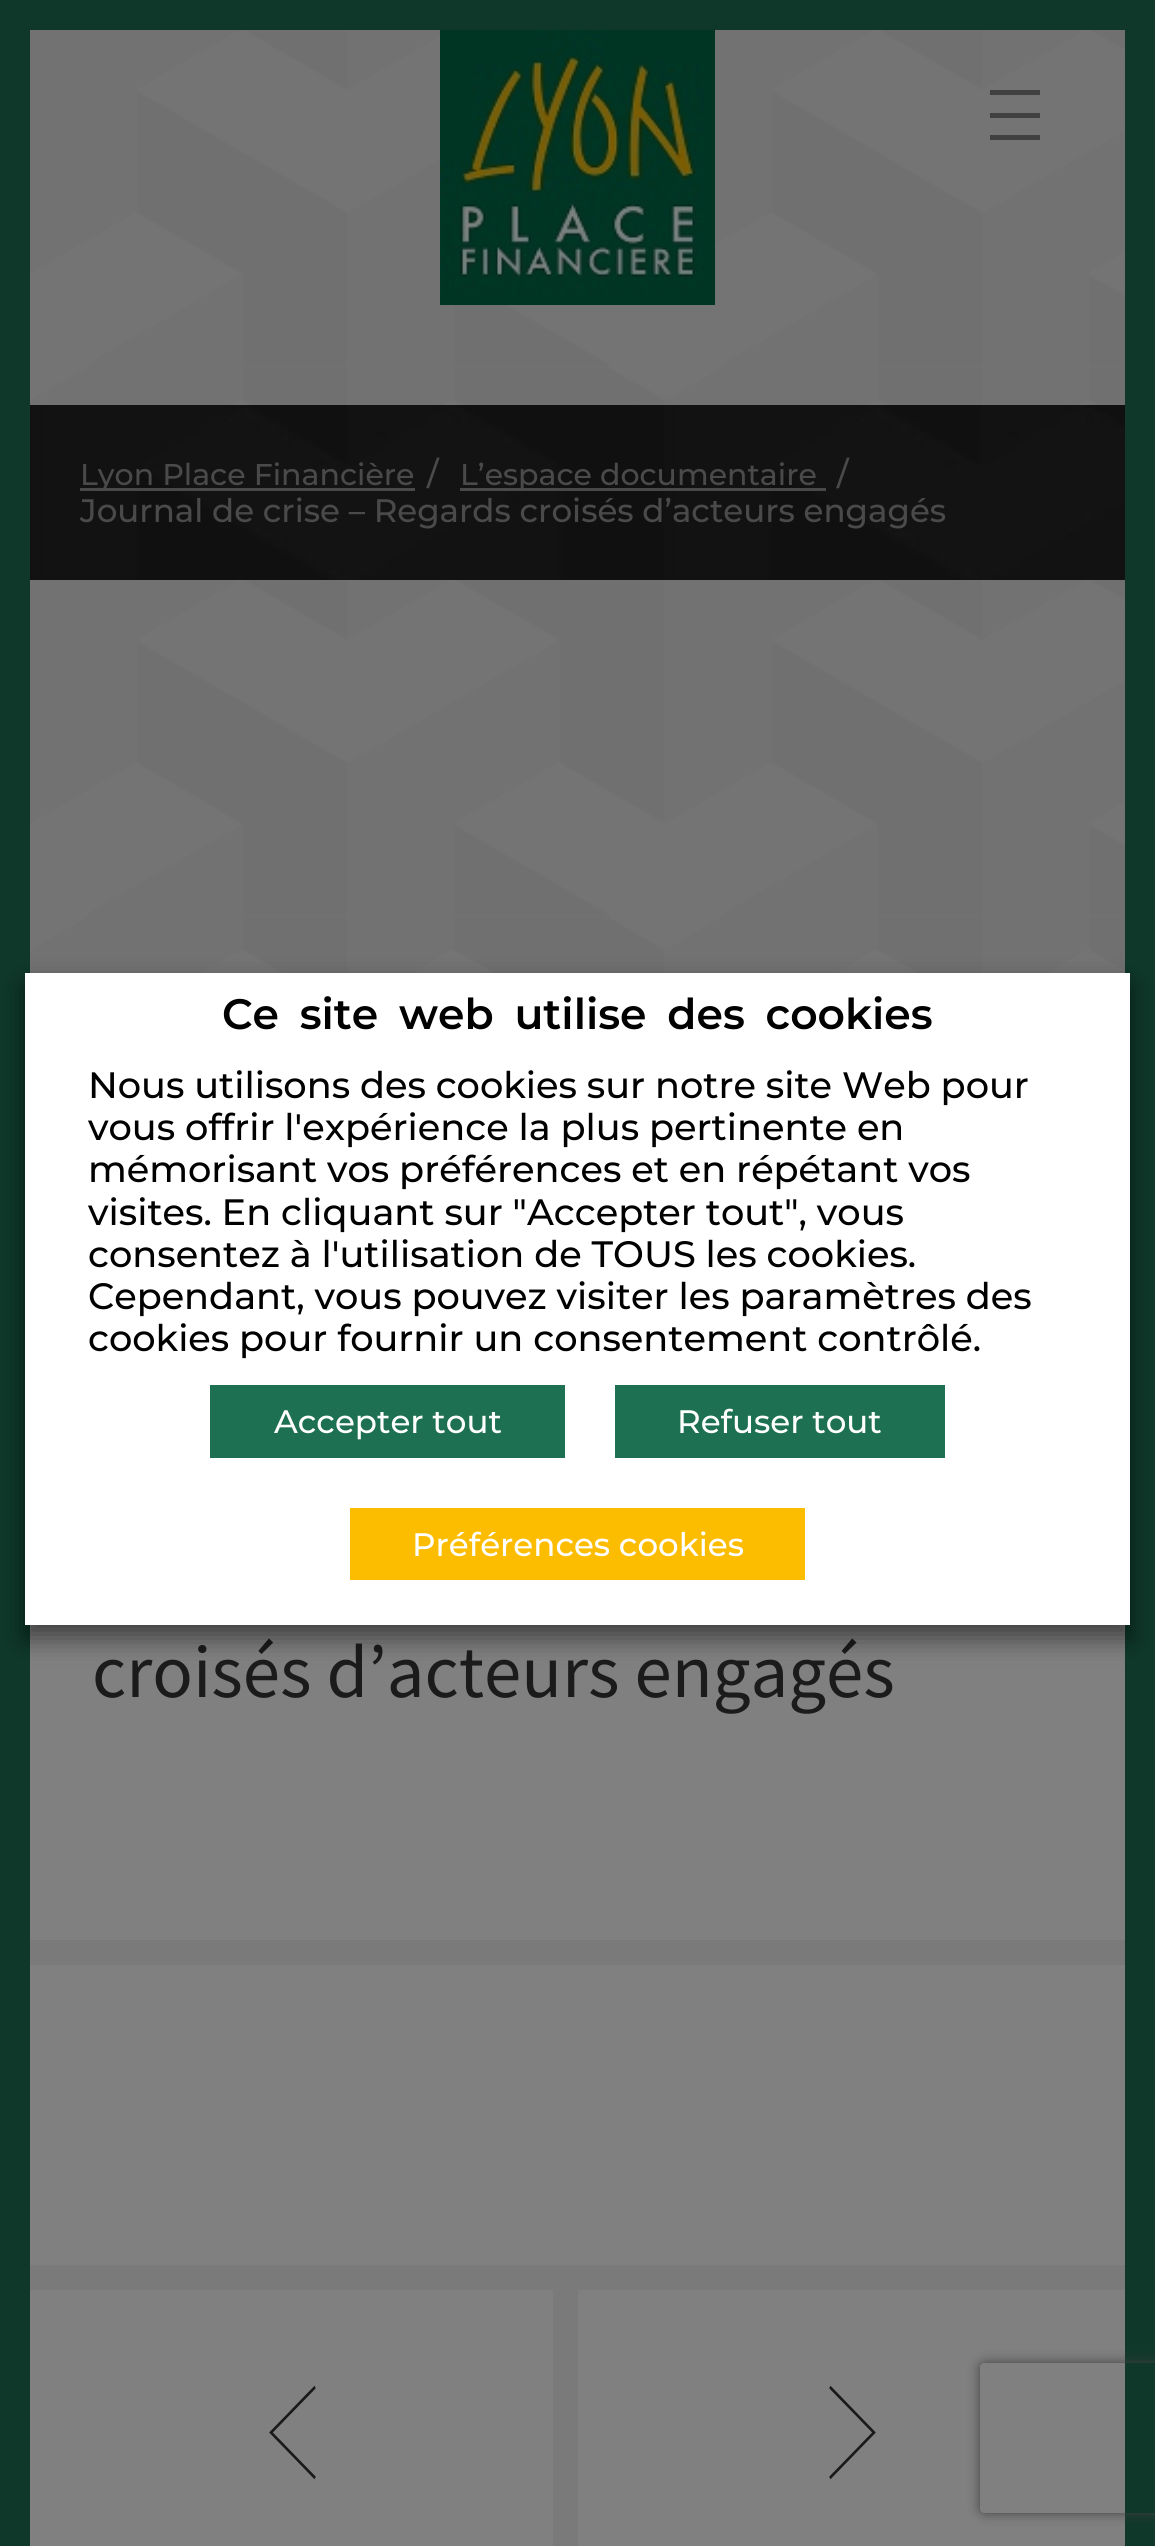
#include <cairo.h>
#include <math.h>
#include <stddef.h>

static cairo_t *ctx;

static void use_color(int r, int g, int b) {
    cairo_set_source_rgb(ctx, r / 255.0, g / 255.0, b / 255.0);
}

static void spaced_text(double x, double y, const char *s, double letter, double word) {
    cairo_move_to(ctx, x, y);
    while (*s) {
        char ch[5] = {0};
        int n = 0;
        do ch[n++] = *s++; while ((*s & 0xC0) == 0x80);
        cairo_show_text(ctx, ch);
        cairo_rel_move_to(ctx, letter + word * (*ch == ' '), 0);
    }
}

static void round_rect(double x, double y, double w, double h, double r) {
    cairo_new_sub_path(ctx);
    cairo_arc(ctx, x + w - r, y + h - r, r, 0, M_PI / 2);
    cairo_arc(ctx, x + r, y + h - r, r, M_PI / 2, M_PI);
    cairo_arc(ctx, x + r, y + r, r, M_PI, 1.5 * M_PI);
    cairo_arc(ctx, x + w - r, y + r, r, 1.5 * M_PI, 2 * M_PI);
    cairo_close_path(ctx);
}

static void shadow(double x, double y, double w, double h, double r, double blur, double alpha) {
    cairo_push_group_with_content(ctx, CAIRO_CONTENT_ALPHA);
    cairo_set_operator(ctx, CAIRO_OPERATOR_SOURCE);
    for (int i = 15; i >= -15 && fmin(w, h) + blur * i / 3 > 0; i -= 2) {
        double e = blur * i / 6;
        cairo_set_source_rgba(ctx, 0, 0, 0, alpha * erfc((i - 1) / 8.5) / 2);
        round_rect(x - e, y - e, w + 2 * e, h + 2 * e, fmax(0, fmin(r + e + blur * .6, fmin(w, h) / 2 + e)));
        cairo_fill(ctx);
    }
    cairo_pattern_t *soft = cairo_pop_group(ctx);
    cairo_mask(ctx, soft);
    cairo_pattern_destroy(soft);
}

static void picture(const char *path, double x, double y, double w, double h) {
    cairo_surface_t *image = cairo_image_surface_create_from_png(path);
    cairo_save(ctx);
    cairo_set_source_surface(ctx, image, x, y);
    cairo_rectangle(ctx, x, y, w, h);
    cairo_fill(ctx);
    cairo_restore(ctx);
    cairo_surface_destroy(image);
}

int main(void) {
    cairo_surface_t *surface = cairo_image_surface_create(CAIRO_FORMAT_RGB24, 1155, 2546);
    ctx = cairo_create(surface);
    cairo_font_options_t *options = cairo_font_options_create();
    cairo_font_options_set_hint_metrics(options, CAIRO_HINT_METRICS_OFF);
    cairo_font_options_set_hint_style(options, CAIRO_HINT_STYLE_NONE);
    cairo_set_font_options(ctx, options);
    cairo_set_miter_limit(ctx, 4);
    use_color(255, 255, 255);
    cairo_paint(ctx);
    picture("img1.png", 30, 30, 1095, 943);
    use_color(15, 56, 42);
    cairo_rectangle(ctx, 1125, 0, 30, 2546);
    cairo_fill(ctx);
    cairo_rectangle(ctx, 0, 0, 30, 2546);
    cairo_fill(ctx);
    picture("img2.png", 30, 30, 1095, 375);
    cairo_rectangle(ctx, 30, 0, 1095, 30);
    cairo_fill(ctx);
    picture("img3.png", 440, 30, 275, 275);
    use_color(64, 64, 64);
    cairo_rectangle(ctx, 990, 90, 50, 5);
    cairo_fill(ctx);
    cairo_rectangle(ctx, 990, 113, 50, 5);
    cairo_fill(ctx);
    cairo_rectangle(ctx, 990, 135, 50, 5);
    cairo_fill(ctx);
    picture("img4.png", 30, 405, 1095, 175);
    cairo_set_source_rgba(ctx, 0.502, 0.502, 0.502, 0.5);
    cairo_rectangle(ctx, 80, 488, 335, 3);
    cairo_fill(ctx);
    cairo_select_font_face(ctx, "Montserrat Medium", CAIRO_FONT_SLANT_NORMAL, CAIRO_FONT_WEIGHT_NORMAL);
    cairo_set_font_size(ctx, 30);
    use_color(74, 74, 74);
    cairo_move_to(ctx, 80, 485);
    cairo_show_text(ctx, "Lyon Place Financière");
    cairo_set_font_size(ctx, 32.5);
    cairo_move_to(ctx, 427, 485);
    cairo_show_text(ctx, "/");
    cairo_set_source_rgba(ctx, 0.502, 0.502, 0.502, 0.5);
    cairo_rectangle(ctx, 460, 488, 358, 3);
    cairo_fill(ctx);
    cairo_set_font_size(ctx, 30);
    use_color(74, 74, 74);
    cairo_move_to(ctx, 460, 485);
    cairo_show_text(ctx, "L’espace documentaire");
    use_color(73, 73, 73);
    cairo_rectangle(ctx, 818, 488, 8, 3);
    cairo_fill(ctx);
    cairo_set_font_size(ctx, 32.5);
    use_color(74, 74, 74);
    cairo_move_to(ctx, 837, 485);
    cairo_show_text(ctx, "/");
    cairo_move_to(ctx, 80, 522);
    cairo_show_text(ctx, "Journal de crise – Regards croisés d’acteurs engagés");
    picture("img5.png", 30, 580, 1095, 393);
    use_color(122, 122, 123);
    cairo_rectangle(ctx, 30, 1940, 1095, 25);
    cairo_fill(ctx);
    use_color(128, 128, 128);
    cairo_rectangle(ctx, 30, 1625, 1095, 315);
    cairo_fill(ctx);
    cairo_select_font_face(ctx, "Source Sans Pro", CAIRO_FONT_SLANT_NORMAL, CAIRO_FONT_WEIGHT_NORMAL);
    cairo_set_font_size(ctx, 75);
    use_color(27, 27, 27);
    cairo_move_to(ctx, 92, 1697);
    cairo_show_text(ctx, "croisés d’acteurs engagés");
    use_color(128, 128, 128);
    cairo_rectangle(ctx, 30, 1965, 1095, 300);
    cairo_fill(ctx);
    use_color(122, 122, 123);
    cairo_rectangle(ctx, 30, 2265, 1095, 25);
    cairo_fill(ctx);
    use_color(128, 128, 128);
    cairo_rectangle(ctx, 30, 2290, 1095, 256);
    cairo_fill(ctx);
    use_color(122, 122, 123);
    cairo_rectangle(ctx, 553, 2290, 25, 256);
    cairo_fill(ctx);
    picture("img6.png", 269, 2385, 47, 95);
    picture("img7.png", 829, 2385, 47, 95);
    use_color(0, 0, 0);
    shadow(25, 985, 1105, 653, 0, 12.5, 0.5);
    use_color(255, 255, 255);
    cairo_rectangle(ctx, 25, 973, 1105, 652);
    cairo_fill(ctx);
    cairo_select_font_face(ctx, "Montserrat SemiBold", CAIRO_FONT_SLANT_NORMAL, CAIRO_FONT_WEIGHT_NORMAL);
    cairo_set_font_size(ctx, 42.5);
    use_color(0, 0, 0);
    spaced_text(222, 1029, "Ce site web utilise des cookies", 0, 9);
    cairo_select_font_face(ctx, "Montserrat Medium", CAIRO_FONT_SLANT_NORMAL, CAIRO_FONT_WEIGHT_NORMAL);
    cairo_set_font_size(ctx, 36.7);
    cairo_move_to(ctx, 88, 1098);
    cairo_show_text(ctx, "Nous utilisons des cookies sur notre site Web pour");
    cairo_move_to(ctx, 88, 1140);
    cairo_show_text(ctx, "vous offrir l'expérience la plus pertinente en");
    cairo_move_to(ctx, 88, 1182);
    cairo_show_text(ctx, "mémorisant vos préférences et en répétant vos");
    cairo_move_to(ctx, 88, 1225);
    cairo_show_text(ctx, "visites. En cliquant sur \"Accepter tout\", vous");
    cairo_move_to(ctx, 88, 1267);
    cairo_show_text(ctx, "consentez à l'utilisation de TOUS les cookies.");
    cairo_move_to(ctx, 88, 1309);
    cairo_show_text(ctx, "Cependant, vous pouvez visiter les paramètres des");
    cairo_move_to(ctx, 88, 1351);
    cairo_show_text(ctx, "cookies pour fournir un consentement contrôlé.");
    use_color(30, 112, 83);
    cairo_rectangle(ctx, 210, 1385, 355, 73);
    cairo_fill(ctx);
    cairo_set_font_size(ctx, 32.5);
    use_color(255, 255, 255);
    cairo_move_to(ctx, 274, 1433);
    cairo_show_text(ctx, "Accepter tout");
    use_color(30, 112, 83);
    cairo_rectangle(ctx, 615, 1385, 330, 73);
    cairo_fill(ctx);
    use_color(255, 255, 255);
    cairo_move_to(ctx, 677, 1433);
    cairo_show_text(ctx, "Refuser tout");
    use_color(252, 188, 0);
    cairo_rectangle(ctx, 350, 1508, 455, 72);
    cairo_fill(ctx);
    use_color(255, 255, 255);
    cairo_move_to(ctx, 412, 1556);
    cairo_show_text(ctx, "Préférences cookies");
    cairo_save(ctx);
    cairo_set_fill_rule(ctx, CAIRO_FILL_RULE_EVEN_ODD);
    cairo_new_path(ctx);
    cairo_move_to(ctx, 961, 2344);
    cairo_line_to(ctx, 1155, 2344);
    cairo_line_to(ctx, 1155, 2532);
    cairo_line_to(ctx, 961, 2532);
    cairo_close_path(ctx);
    cairo_move_to(ctx, 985, 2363);
    cairo_line_to(ctx, 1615, 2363);
    cairo_curve_to(ctx, 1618, 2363, 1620, 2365, 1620, 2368);
    cairo_line_to(ctx, 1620, 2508);
    cairo_curve_to(ctx, 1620, 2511, 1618, 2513, 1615, 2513);
    cairo_line_to(ctx, 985, 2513);
    cairo_curve_to(ctx, 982, 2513, 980, 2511, 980, 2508);
    cairo_line_to(ctx, 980, 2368);
    cairo_curve_to(ctx, 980, 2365, 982, 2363, 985, 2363);
    cairo_close_path(ctx);
    cairo_clip(ctx);
    use_color(64, 64, 64);
    shadow(980, 2363, 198, 150, 5, 6, 1);
    cairo_restore(ctx);
    cairo_surface_write_to_png(surface, "result.png");
    cairo_font_options_destroy(options);
    cairo_destroy(ctx);
    cairo_surface_destroy(surface);
    return 0;
}
